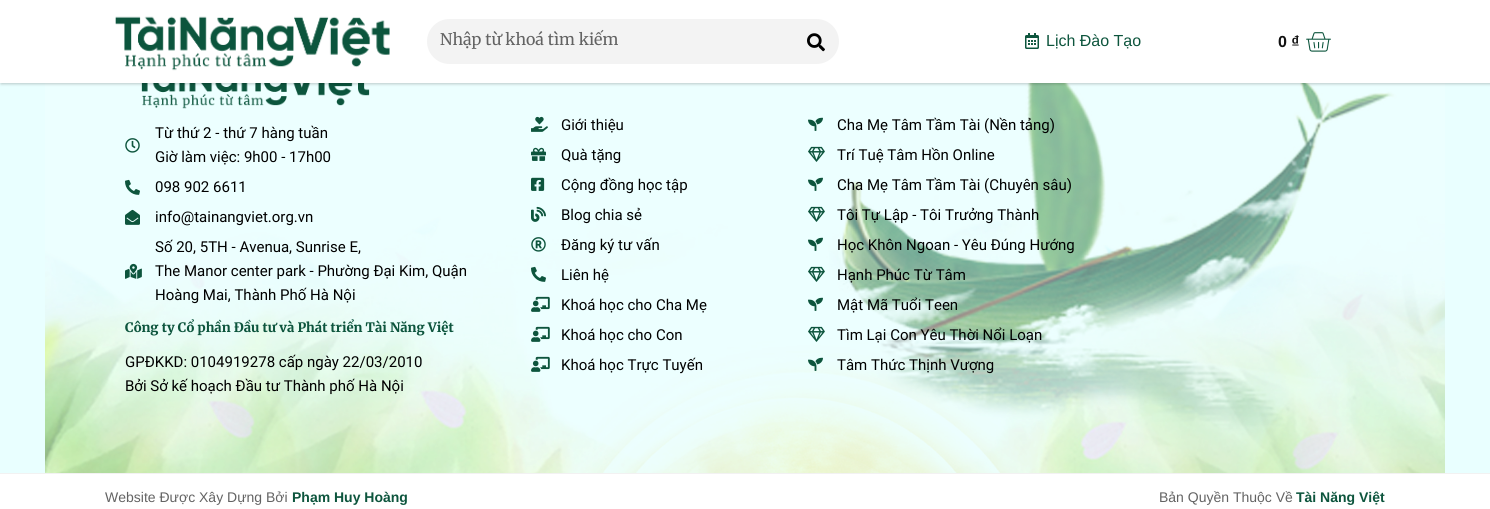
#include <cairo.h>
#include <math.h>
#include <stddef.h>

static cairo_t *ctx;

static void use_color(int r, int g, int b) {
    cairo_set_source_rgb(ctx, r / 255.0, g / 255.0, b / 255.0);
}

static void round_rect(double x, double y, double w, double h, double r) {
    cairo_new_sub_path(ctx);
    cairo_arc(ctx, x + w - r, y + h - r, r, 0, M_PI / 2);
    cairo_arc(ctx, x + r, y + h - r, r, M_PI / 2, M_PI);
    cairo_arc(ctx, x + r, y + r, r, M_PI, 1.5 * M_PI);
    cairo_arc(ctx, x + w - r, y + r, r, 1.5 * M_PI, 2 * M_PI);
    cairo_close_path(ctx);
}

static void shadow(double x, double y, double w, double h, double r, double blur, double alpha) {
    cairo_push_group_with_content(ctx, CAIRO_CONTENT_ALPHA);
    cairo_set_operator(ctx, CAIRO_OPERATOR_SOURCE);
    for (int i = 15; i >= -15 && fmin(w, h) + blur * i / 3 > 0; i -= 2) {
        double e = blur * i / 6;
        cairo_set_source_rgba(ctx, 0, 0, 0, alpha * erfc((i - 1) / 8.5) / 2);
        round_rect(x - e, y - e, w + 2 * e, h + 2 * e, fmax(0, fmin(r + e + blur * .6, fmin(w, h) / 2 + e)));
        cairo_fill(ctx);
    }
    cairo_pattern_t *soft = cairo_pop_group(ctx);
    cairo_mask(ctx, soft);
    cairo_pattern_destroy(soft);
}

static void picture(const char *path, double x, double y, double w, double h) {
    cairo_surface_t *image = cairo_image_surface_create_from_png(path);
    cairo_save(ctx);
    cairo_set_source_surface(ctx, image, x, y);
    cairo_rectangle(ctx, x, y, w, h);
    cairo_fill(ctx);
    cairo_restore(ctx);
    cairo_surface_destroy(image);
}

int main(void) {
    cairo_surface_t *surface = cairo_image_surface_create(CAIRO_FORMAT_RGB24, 1490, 509);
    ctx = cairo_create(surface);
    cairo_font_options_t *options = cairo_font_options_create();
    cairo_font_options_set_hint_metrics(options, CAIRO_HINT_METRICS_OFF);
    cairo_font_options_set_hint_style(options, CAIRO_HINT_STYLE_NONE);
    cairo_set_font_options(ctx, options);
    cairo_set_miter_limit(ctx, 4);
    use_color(255, 255, 255);
    cairo_paint(ctx);
    use_color(233, 255, 255);
    cairo_rectangle(ctx, 0, 83, 1490, 390);
    cairo_fill(ctx);
    picture("img5.png", 45, 83, 1400, 390);
    picture("img6.png", 141, 83, 229, 26);
    use_color(0, 0, 0);
    shadow(1, 1, 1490, 83, 0, 1.5, 0.22);
    use_color(255, 255, 255);
    cairo_rectangle(ctx, 0, 0, 1490, 83);
    cairo_fill(ctx);
    picture("img1.png", 115, 16, 275, 55);
    use_color(243, 243, 243);
    round_rect(427, 19, 412, 45, 22.5);
    cairo_fill(ctx);
    cairo_select_font_face(ctx, "Merriweather", CAIRO_FONT_SLANT_NORMAL, CAIRO_FONT_WEIGHT_NORMAL);
    cairo_set_font_size(ctx, 16);
    use_color(99, 99, 99);
    cairo_move_to(ctx, 440, 45);
    cairo_show_text(ctx, "Nhập từ khoá tìm kiếm");
    picture("img2.png", 807, 33, 18, 19);
    picture("img3.png", 1025, 33, 14, 16);
    cairo_select_font_face(ctx, "Liberation Sans", CAIRO_FONT_SLANT_NORMAL, CAIRO_FONT_WEIGHT_NORMAL);
    use_color(13, 85, 61);
    cairo_move_to(ctx, 1046, 46);
    cairo_show_text(ctx, "Lịch Đào Tạo");
    cairo_select_font_face(ctx, "Liberation Sans", CAIRO_FONT_SLANT_NORMAL, CAIRO_FONT_WEIGHT_BOLD);
    use_color(17, 17, 17);
    cairo_move_to(ctx, 1278, 47);
    cairo_show_text(ctx, "0 ₫");
    picture("img4.png", 1306, 32, 25, 20);
    use_color(242, 242, 242);
    cairo_rectangle(ctx, 0, 473, 1490, 1);
    cairo_fill(ctx);
    picture("img7.png", 125, 138, 15, 15);
    cairo_select_font_face(ctx, "Roboto", CAIRO_FONT_SLANT_NORMAL, CAIRO_FONT_WEIGHT_NORMAL);
    cairo_set_font_size(ctx, 15);
    use_color(0, 0, 0);
    cairo_move_to(ctx, 155, 138);
    cairo_show_text(ctx, "Từ thứ 2 - thứ 7 hàng tuần");
    cairo_move_to(ctx, 155, 162);
    cairo_show_text(ctx, "Giờ làm việc: 9h00 - 17h00");
    picture("img8.png", 125, 179, 15, 16);
    cairo_move_to(ctx, 155, 192);
    cairo_show_text(ctx, "098 902 6611");
    picture("img9.png", 125, 209, 15, 16);
    cairo_move_to(ctx, 155, 222);
    cairo_show_text(ctx, "info@tainangviet.org.vn");
    picture("img10.png", 125, 263, 17, 16);
    cairo_move_to(ctx, 155, 252);
    cairo_show_text(ctx, "Số 20, 5TH - Avenua, Sunrise E,");
    cairo_move_to(ctx, 155, 276);
    cairo_show_text(ctx, "The Manor center park - Phường Đại Kim, Quận");
    cairo_move_to(ctx, 155, 300);
    cairo_show_text(ctx, "Hoàng Mai, Thành Phố Hà Nội");
    cairo_select_font_face(ctx, "Merriweather ExtraBold", CAIRO_FONT_SLANT_NORMAL, CAIRO_FONT_WEIGHT_NORMAL);
    cairo_set_font_size(ctx, 13);
    use_color(13, 85, 61);
    cairo_move_to(ctx, 125, 332);
    cairo_show_text(ctx, "Công ty Cổ phần Đầu tư và Phát triển Tài Năng Việt");
    cairo_select_font_face(ctx, "Roboto", CAIRO_FONT_SLANT_NORMAL, CAIRO_FONT_WEIGHT_NORMAL);
    cairo_set_font_size(ctx, 15);
    use_color(0, 0, 0);
    cairo_move_to(ctx, 125, 367);
    cairo_show_text(ctx, "GPĐKKD: 0104919278 cấp ngày 22/03/2010");
    cairo_move_to(ctx, 125, 391);
    cairo_show_text(ctx, "Bởi Sở kế hoạch Đầu tư Thành phố Hà Nội");
    picture("img11.png", 531, 116, 17, 16);
    cairo_move_to(ctx, 561, 130);
    cairo_show_text(ctx, "Giới thiệu");
    picture("img12.png", 531, 147, 15, 14);
    cairo_move_to(ctx, 561, 160);
    cairo_show_text(ctx, "Quà tặng");
    picture("img13.png", 531, 177, 14, 14);
    cairo_move_to(ctx, 561, 190);
    cairo_show_text(ctx, "Cộng đồng học tập");
    picture("img14.png", 531, 206, 15, 16);
    cairo_move_to(ctx, 561, 220);
    cairo_show_text(ctx, "Blog chia sẻ");
    picture("img15.png", 531, 237, 15, 15);
    cairo_move_to(ctx, 561, 250);
    cairo_show_text(ctx, "Đăng ký tư vấn");
    picture("img16.png", 531, 266, 15, 16);
    cairo_move_to(ctx, 561, 280);
    cairo_show_text(ctx, "Liên hệ");
    picture("img17.png", 531, 296, 19, 16);
    cairo_move_to(ctx, 561, 310);
    cairo_show_text(ctx, "Khoá học cho Cha Mẹ");
    picture("img17.png", 531, 326, 19, 16);
    cairo_move_to(ctx, 561, 340);
    cairo_show_text(ctx, "Khoá học cho Con");
    picture("img18.png", 531, 356, 19, 16);
    cairo_move_to(ctx, 561, 370);
    cairo_show_text(ctx, "Khoá học Trực Tuyến");
    picture("img19.png", 808, 117, 15, 14);
    cairo_move_to(ctx, 837, 130);
    cairo_show_text(ctx, "Cha Mẹ Tâm Tầm Tài (Nền tảng)");
    picture("img20.png", 808, 146, 17, 16);
    cairo_move_to(ctx, 837, 160);
    cairo_show_text(ctx, "Trí Tuệ Tâm Hồn Online");
    picture("img19.png", 808, 177, 15, 14);
    cairo_move_to(ctx, 837, 190);
    cairo_show_text(ctx, "Cha Mẹ Tâm Tầm Tài (Chuyên sâu)");
    picture("img20.png", 808, 206, 17, 16);
    cairo_move_to(ctx, 837, 220);
    cairo_show_text(ctx, "Tôi Tự Lập - Tôi Trưởng Thành");
    picture("img19.png", 808, 237, 15, 14);
    cairo_move_to(ctx, 837, 250);
    cairo_show_text(ctx, "Học Khôn Ngoan - Yêu Đúng Hướng");
    picture("img20.png", 808, 266, 17, 16);
    cairo_move_to(ctx, 837, 280);
    cairo_show_text(ctx, "Hạnh Phúc Từ Tâm");
    picture("img19.png", 808, 297, 15, 14);
    cairo_move_to(ctx, 837, 310);
    cairo_show_text(ctx, "Mật Mã Tuổi Teen");
    picture("img20.png", 808, 326, 17, 16);
    cairo_move_to(ctx, 837, 340);
    cairo_show_text(ctx, "Tìm Lại Con Yêu Thời Nổi Loạn");
    picture("img21.png", 808, 357, 15, 14);
    cairo_move_to(ctx, 837, 370);
    cairo_show_text(ctx, "Tâm Thức Thịnh Vượng");
    cairo_select_font_face(ctx, "Liberation Sans", CAIRO_FONT_SLANT_NORMAL, CAIRO_FONT_WEIGHT_NORMAL);
    cairo_set_font_size(ctx, 14);
    use_color(99, 99, 99);
    cairo_move_to(ctx, 105, 502);
    cairo_show_text(ctx, "Website Được Xây Dựng Bởi");
    cairo_select_font_face(ctx, "Liberation Sans", CAIRO_FONT_SLANT_NORMAL, CAIRO_FONT_WEIGHT_BOLD);
    use_color(13, 85, 61);
    cairo_move_to(ctx, 292, 502);
    cairo_show_text(ctx, "Phạm Huy Hoàng");
    cairo_select_font_face(ctx, "Liberation Sans", CAIRO_FONT_SLANT_NORMAL, CAIRO_FONT_WEIGHT_NORMAL);
    use_color(99, 99, 99);
    cairo_move_to(ctx, 1159, 502);
    cairo_show_text(ctx, "Bản Quyền Thuộc Về");
    cairo_select_font_face(ctx, "Liberation Sans", CAIRO_FONT_SLANT_NORMAL, CAIRO_FONT_WEIGHT_BOLD);
    use_color(13, 85, 61);
    cairo_move_to(ctx, 1296, 502);
    cairo_show_text(ctx, "Tài Năng Việt");
    cairo_surface_write_to_png(surface, "result.png");
    cairo_font_options_destroy(options);
    cairo_destroy(ctx);
    cairo_surface_destroy(surface);
    return 0;
}
